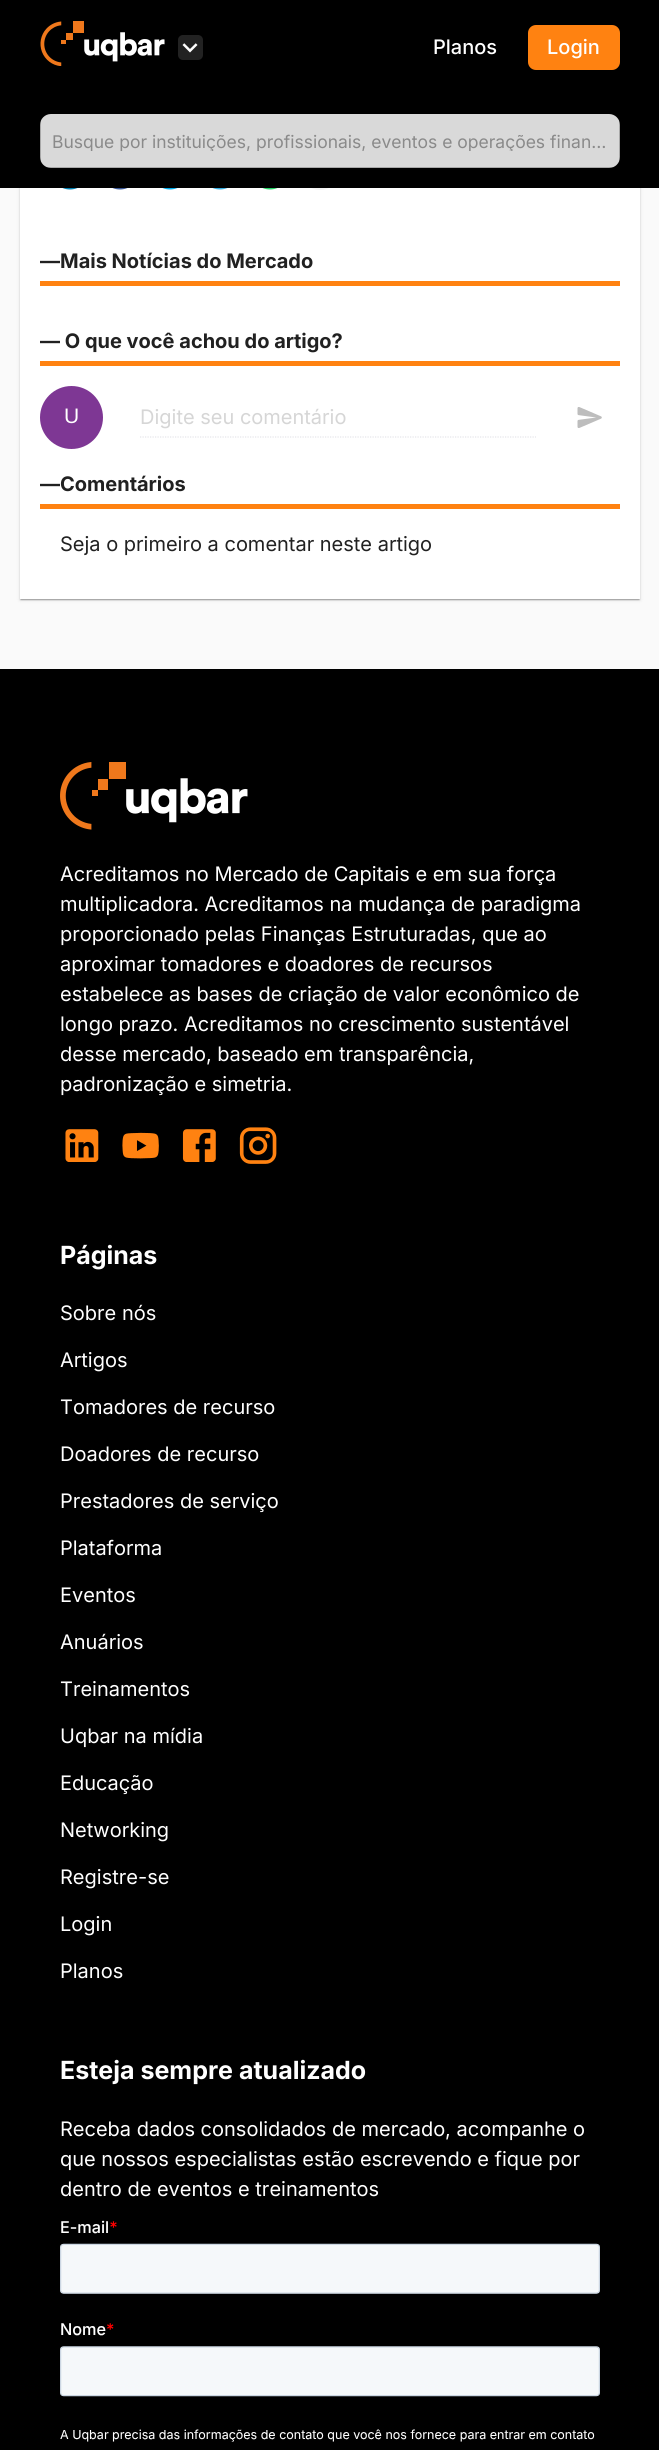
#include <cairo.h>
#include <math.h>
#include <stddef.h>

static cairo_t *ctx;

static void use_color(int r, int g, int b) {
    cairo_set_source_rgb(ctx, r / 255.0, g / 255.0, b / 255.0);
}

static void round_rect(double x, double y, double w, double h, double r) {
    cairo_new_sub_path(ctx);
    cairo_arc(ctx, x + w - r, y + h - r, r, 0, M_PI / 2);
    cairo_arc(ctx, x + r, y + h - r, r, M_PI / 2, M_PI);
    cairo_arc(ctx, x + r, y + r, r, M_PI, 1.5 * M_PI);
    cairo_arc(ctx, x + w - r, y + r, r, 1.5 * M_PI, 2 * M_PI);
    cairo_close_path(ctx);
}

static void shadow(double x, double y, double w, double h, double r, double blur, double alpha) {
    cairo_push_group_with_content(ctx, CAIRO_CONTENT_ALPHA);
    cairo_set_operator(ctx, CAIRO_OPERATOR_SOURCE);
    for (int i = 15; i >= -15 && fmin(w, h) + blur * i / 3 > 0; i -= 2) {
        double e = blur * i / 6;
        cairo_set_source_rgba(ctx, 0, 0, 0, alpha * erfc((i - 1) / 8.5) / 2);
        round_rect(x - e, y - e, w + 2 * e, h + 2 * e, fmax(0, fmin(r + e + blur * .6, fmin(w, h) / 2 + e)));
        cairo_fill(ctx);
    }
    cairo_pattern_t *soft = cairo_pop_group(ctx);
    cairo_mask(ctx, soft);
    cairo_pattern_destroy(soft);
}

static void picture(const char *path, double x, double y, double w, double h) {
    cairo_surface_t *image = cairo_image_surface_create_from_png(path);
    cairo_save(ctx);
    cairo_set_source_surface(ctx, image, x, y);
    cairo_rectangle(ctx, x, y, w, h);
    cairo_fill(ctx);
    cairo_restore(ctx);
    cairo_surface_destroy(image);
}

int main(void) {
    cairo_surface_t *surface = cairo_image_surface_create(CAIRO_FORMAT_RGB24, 659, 2450);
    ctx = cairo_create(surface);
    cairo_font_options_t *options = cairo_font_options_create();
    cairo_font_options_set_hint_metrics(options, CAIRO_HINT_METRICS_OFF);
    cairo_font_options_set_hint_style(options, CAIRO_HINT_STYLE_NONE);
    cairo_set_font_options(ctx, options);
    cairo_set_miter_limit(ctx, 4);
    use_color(250, 250, 250);
    cairo_paint(ctx);
    use_color(0, 0, 0);
    shadow(20, -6, 620, 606, 0, 2, 0.12);
    shadow(20, -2, 620, 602, 0, 0.5, 0.14);
    shadow(21, -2, 618, 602, 0, 0.5, 0.2);
    use_color(255, 255, 255);
    cairo_rectangle(ctx, 20, 188, 620, 411);
    cairo_fill(ctx);
    use_color(245, 245, 245);
    cairo_arc(ctx, 320, 170, 20, 0, 2 * M_PI);
    cairo_fill(ctx);
    use_color(0, 0, 0);
    cairo_rectangle(ctx, 0, 0, 659, 188);
    cairo_fill(ctx);
    picture("img1.png", 40, 21, 125, 45);
    use_color(34, 34, 34);
    round_rect(178, 35, 25, 25, 5);
    cairo_fill(ctx);
    picture("img2.png", 182, 43, 16, 10);
    cairo_select_font_face(ctx, "Inter Medium", CAIRO_FONT_SLANT_NORMAL, CAIRO_FONT_WEIGHT_NORMAL);
    cairo_set_font_size(ctx, 20);
    use_color(255, 255, 255);
    cairo_move_to(ctx, 433, 54);
    cairo_show_text(ctx, "Planos");
    use_color(255, 130, 17);
    round_rect(528, 25, 92, 45, 8);
    cairo_fill(ctx);
    use_color(255, 255, 255);
    cairo_move_to(ctx, 547, 54);
    cairo_show_text(ctx, "Login");
    use_color(217, 217, 217);
    round_rect(40, 114, 580, 54, 11);
    cairo_fill(ctx);
    cairo_rectangle(ctx, 40.5, 108.5, 579, 59);
    cairo_set_source_rgba(ctx, 0, 0, 0, 0.23);
    cairo_set_line_width(ctx, 1);
    cairo_stroke(ctx);
    cairo_save(ctx);
    cairo_rectangle(ctx, 53, 130, 558, 21);
    cairo_clip(ctx);
    cairo_select_font_face(ctx, "Inter", CAIRO_FONT_SLANT_NORMAL, CAIRO_FONT_WEIGHT_NORMAL);
    cairo_set_font_size(ctx, 17.5);
    use_color(138, 138, 138);
    cairo_move_to(ctx, 52, 148);
    cairo_show_text(ctx, "Busque por instituições, profissionais, eventos e operações finan…");
    cairo_restore(ctx);
    picture("img3.png", 62, 188, 16, 2);
    picture("img4.png", 112, 188, 16, 2);
    picture("img5.png", 162, 188, 16, 2);
    picture("img6.png", 212, 188, 16, 2);
    picture("img7.png", 262, 188, 16, 2);
    cairo_select_font_face(ctx, "Inter", CAIRO_FONT_SLANT_NORMAL, CAIRO_FONT_WEIGHT_BOLD);
    use_color(33, 33, 33);
    cairo_move_to(ctx, 40, 268);
    cairo_show_text(ctx, "—Mais Notícias do Mercado");
    use_color(255, 130, 17);
    cairo_rectangle(ctx, 40, 281, 580, 5);
    cairo_fill(ctx);
    use_color(33, 33, 33);
    cairo_move_to(ctx, 40, 348);
    cairo_show_text(ctx, "— O que você achou do artigo?");
    use_color(255, 130, 17);
    cairo_rectangle(ctx, 40, 361, 580, 5);
    cairo_fill(ctx);
    use_color(126, 55, 148);
    cairo_arc(ctx, 71.5, 417.5, 31.5, 0, 2 * M_PI);
    cairo_fill(ctx);
    cairo_select_font_face(ctx, "Liberation Sans", CAIRO_FONT_SLANT_NORMAL, CAIRO_FONT_WEIGHT_NORMAL);
    cairo_set_font_size(ctx, 21);
    use_color(255, 255, 255);
    cairo_move_to(ctx, 64, 423);
    cairo_show_text(ctx, "U");
    cairo_select_font_face(ctx, "Inter", CAIRO_FONT_SLANT_NORMAL, CAIRO_FONT_WEIGHT_NORMAL);
    cairo_set_font_size(ctx, 20);
    use_color(214, 214, 214);
    cairo_move_to(ctx, 140, 424);
    cairo_show_text(ctx, "Digite seu comentário");
    cairo_new_path(ctx);
    cairo_move_to(ctx, 140, 437);
    cairo_line_to(ctx, 536, 437);
    use_color(228, 229, 233);
    cairo_set_line_width(ctx, 1.2);
    cairo_set_dash(ctx, (double[]){1.25, 1.25}, 2, 0);
    cairo_stroke(ctx);
    picture("img8.png", 577, 407, 25, 21);
    cairo_select_font_face(ctx, "Inter", CAIRO_FONT_SLANT_NORMAL, CAIRO_FONT_WEIGHT_BOLD);
    use_color(33, 33, 33);
    cairo_move_to(ctx, 40, 491);
    cairo_show_text(ctx, "—Comentários");
    use_color(255, 130, 17);
    cairo_rectangle(ctx, 40, 504, 580, 5);
    cairo_fill(ctx);
    cairo_select_font_face(ctx, "Inter", CAIRO_FONT_SLANT_NORMAL, CAIRO_FONT_WEIGHT_NORMAL);
    use_color(33, 33, 33);
    cairo_move_to(ctx, 60, 551);
    cairo_show_text(ctx, "Seja o primeiro a comentar neste artigo");
    use_color(0, 0, 0);
    cairo_rectangle(ctx, 0, 669, 659, 1781);
    cairo_fill(ctx);
    picture("img9.png", 60, 762, 188, 68);
    use_color(255, 255, 255);
    cairo_move_to(ctx, 60, 881);
    cairo_show_text(ctx, "Acreditamos no Mercado de Capitais e em sua força");
    cairo_move_to(ctx, 60, 911);
    cairo_show_text(ctx, "multiplicadora. Acreditamos na mudança de paradigma");
    cairo_move_to(ctx, 60, 941);
    cairo_show_text(ctx, "proporcionado pelas Finanças Estruturadas, que ao");
    cairo_move_to(ctx, 60, 971);
    cairo_show_text(ctx, "aproximar tomadores e doadores de recursos");
    cairo_move_to(ctx, 60, 1001);
    cairo_show_text(ctx, "estabelece as bases de criação de valor econômico de");
    cairo_move_to(ctx, 60, 1031);
    cairo_show_text(ctx, "longo prazo. Acreditamos no crescimento sustentável");
    cairo_move_to(ctx, 60, 1061);
    cairo_show_text(ctx, "desse mercado, baseado em transparência,");
    cairo_move_to(ctx, 60, 1091);
    cairo_show_text(ctx, "padronização e simetria.");
    picture("img10.png", 65, 1129, 34, 33);
    picture("img11.png", 122, 1132, 37, 27);
    picture("img12.png", 182, 1129, 34, 33);
    picture("img13.png", 239, 1127, 38, 37);
    cairo_select_font_face(ctx, "Inter", CAIRO_FONT_SLANT_NORMAL, CAIRO_FONT_WEIGHT_BOLD);
    cairo_set_font_size(ctx, 25);
    cairo_move_to(ctx, 60, 1264);
    cairo_show_text(ctx, "Páginas");
    cairo_select_font_face(ctx, "Inter", CAIRO_FONT_SLANT_NORMAL, CAIRO_FONT_WEIGHT_NORMAL);
    cairo_set_font_size(ctx, 20);
    cairo_move_to(ctx, 60, 1320);
    cairo_show_text(ctx, "Sobre nós");
    cairo_move_to(ctx, 60, 1367);
    cairo_show_text(ctx, "Artigos");
    cairo_move_to(ctx, 60, 1414);
    cairo_show_text(ctx, "Tomadores de recurso");
    cairo_move_to(ctx, 60, 1461);
    cairo_show_text(ctx, "Doadores de recurso");
    cairo_move_to(ctx, 60, 1508);
    cairo_show_text(ctx, "Prestadores de serviço");
    cairo_move_to(ctx, 60, 1555);
    cairo_show_text(ctx, "Plataforma");
    cairo_move_to(ctx, 60, 1602);
    cairo_show_text(ctx, "Eventos");
    cairo_move_to(ctx, 60, 1649);
    cairo_show_text(ctx, "Anuários");
    cairo_move_to(ctx, 60, 1696);
    cairo_show_text(ctx, "Treinamentos");
    cairo_move_to(ctx, 60, 1743);
    cairo_show_text(ctx, "Uqbar na mídia");
    cairo_move_to(ctx, 60, 1790);
    cairo_show_text(ctx, "Educação");
    cairo_move_to(ctx, 60, 1837);
    cairo_show_text(ctx, "Networking");
    cairo_move_to(ctx, 60, 1884);
    cairo_show_text(ctx, "Registre-se");
    cairo_move_to(ctx, 60, 1931);
    cairo_show_text(ctx, "Login");
    cairo_move_to(ctx, 60, 1978);
    cairo_show_text(ctx, "Planos");
    cairo_select_font_face(ctx, "Inter", CAIRO_FONT_SLANT_NORMAL, CAIRO_FONT_WEIGHT_BOLD);
    cairo_set_font_size(ctx, 25);
    cairo_move_to(ctx, 60, 2079);
    cairo_show_text(ctx, "Esteja sempre atualizado");
    cairo_select_font_face(ctx, "Inter", CAIRO_FONT_SLANT_NORMAL, CAIRO_FONT_WEIGHT_NORMAL);
    cairo_set_font_size(ctx, 20);
    cairo_move_to(ctx, 60, 2136);
    cairo_show_text(ctx, "Receba dados consolidados de mercado, acompanhe o");
    cairo_move_to(ctx, 60, 2166);
    cairo_show_text(ctx, "que nossos especialistas estão escrevendo e fique por");
    cairo_move_to(ctx, 60, 2196);
    cairo_show_text(ctx, "dentro de eventos e treinamentos");
    picture("img14.png", 60, 2220, 540, 222);
    cairo_surface_write_to_png(surface, "result.png");
    cairo_font_options_destroy(options);
    cairo_destroy(ctx);
    cairo_surface_destroy(surface);
    return 0;
}
